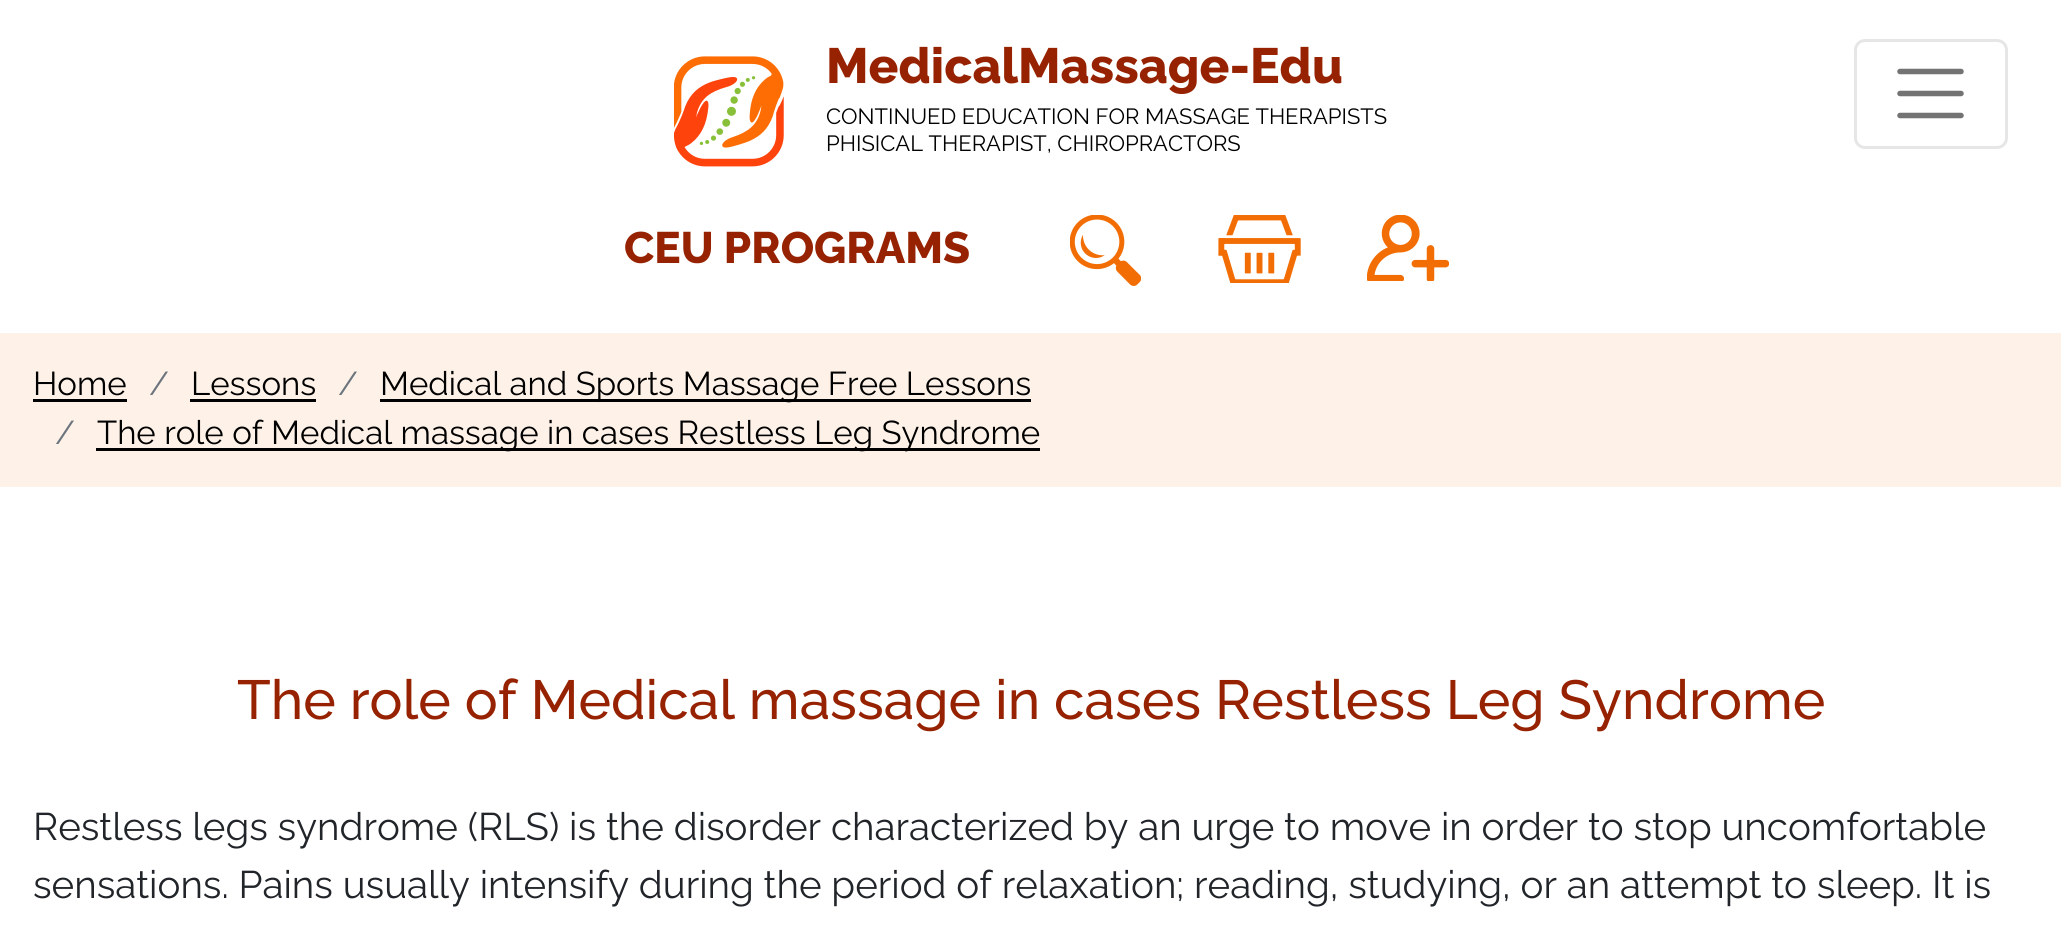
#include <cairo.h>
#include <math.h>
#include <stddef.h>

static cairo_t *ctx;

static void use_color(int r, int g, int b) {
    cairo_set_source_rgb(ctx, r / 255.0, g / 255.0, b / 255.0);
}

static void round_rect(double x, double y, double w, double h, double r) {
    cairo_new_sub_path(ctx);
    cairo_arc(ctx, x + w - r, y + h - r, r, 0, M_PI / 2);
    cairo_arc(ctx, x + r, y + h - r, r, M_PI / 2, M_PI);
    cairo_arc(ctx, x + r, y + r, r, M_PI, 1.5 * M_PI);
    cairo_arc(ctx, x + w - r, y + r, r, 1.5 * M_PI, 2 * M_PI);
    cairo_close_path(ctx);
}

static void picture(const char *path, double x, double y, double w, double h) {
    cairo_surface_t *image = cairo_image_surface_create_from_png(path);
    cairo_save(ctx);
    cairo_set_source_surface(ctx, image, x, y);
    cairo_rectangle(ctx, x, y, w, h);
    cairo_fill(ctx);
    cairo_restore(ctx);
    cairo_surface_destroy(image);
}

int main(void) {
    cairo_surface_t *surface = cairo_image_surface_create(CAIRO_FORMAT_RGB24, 2061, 927);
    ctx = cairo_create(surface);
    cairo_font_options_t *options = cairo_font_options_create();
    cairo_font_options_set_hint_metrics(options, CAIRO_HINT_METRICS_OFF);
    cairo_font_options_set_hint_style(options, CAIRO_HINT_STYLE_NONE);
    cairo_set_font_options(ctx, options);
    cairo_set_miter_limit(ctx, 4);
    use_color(255, 255, 255);
    cairo_paint(ctx);
    picture("img1.png", 674, 56, 110, 111);
    cairo_select_font_face(ctx, "Raleway ExtraBold", CAIRO_FONT_SLANT_NORMAL, CAIRO_FONT_WEIGHT_NORMAL);
    cairo_set_font_size(ctx, 49.5);
    use_color(150, 34, 1);
    cairo_move_to(ctx, 826, 83);
    cairo_show_text(ctx, "MedicalMassage-Edu");
    cairo_select_font_face(ctx, "Raleway", CAIRO_FONT_SLANT_NORMAL, CAIRO_FONT_WEIGHT_NORMAL);
    cairo_set_font_size(ctx, 22);
    use_color(0, 0, 0);
    cairo_move_to(ctx, 826, 124);
    cairo_show_text(ctx, "CONTINUED EDUCATION FOR MASSAGE THERAPISTS");
    cairo_move_to(ctx, 826, 151);
    cairo_show_text(ctx, "PHISICAL THERAPIST, CHIROPRACTORS");
    cairo_select_font_face(ctx, "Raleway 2 ExtraBold", CAIRO_FONT_SLANT_NORMAL, CAIRO_FONT_WEIGHT_NORMAL);
    cairo_set_font_size(ctx, 44);
    use_color(150, 34, 1);
    cairo_move_to(ctx, 624, 263);
    cairo_show_text(ctx, "CEU PROGRAMS");
    picture("img2.png", 1070, 215, 71, 71);
    picture("img3.png", 1218, 215, 83, 68);
    picture("img4.png", 1367, 215, 82, 66);
    round_rect(1855.5, 40.5, 151, 107, 9.5);
    use_color(230, 230, 230);
    cairo_set_line_width(ctx, 3);
    cairo_stroke(ctx);
    cairo_new_path(ctx);
    cairo_move_to(ctx, 1900, 71.5);
    cairo_line_to(ctx, 1961, 71.5);
    cairo_move_to(ctx, 1900, 93.5);
    cairo_line_to(ctx, 1961, 93.5);
    cairo_move_to(ctx, 1900, 115.5);
    cairo_line_to(ctx, 1961, 115.5);
    use_color(115, 115, 115);
    cairo_set_line_width(ctx, 5.5);
    cairo_set_line_cap(ctx, CAIRO_LINE_CAP_ROUND);
    cairo_stroke(ctx);
    use_color(254, 241, 231);
    cairo_rectangle(ctx, 0, 333, 2061, 154);
    cairo_fill(ctx);
    cairo_select_font_face(ctx, "Raleway", CAIRO_FONT_SLANT_NORMAL, CAIRO_FONT_WEIGHT_NORMAL);
    cairo_set_font_size(ctx, 33);
    use_color(0, 0, 0);
    cairo_move_to(ctx, 33, 395);
    cairo_show_text(ctx, "Home");
    cairo_rectangle(ctx, 33, 399, 94, 3);
    cairo_fill(ctx);
    use_color(108, 117, 125);
    cairo_move_to(ctx, 149, 395);
    cairo_show_text(ctx, "/");
    use_color(0, 0, 0);
    cairo_move_to(ctx, 191, 395);
    cairo_show_text(ctx, "Lessons");
    cairo_rectangle(ctx, 190, 399, 126, 3);
    cairo_fill(ctx);
    use_color(108, 117, 125);
    cairo_move_to(ctx, 338, 395);
    cairo_show_text(ctx, "/");
    use_color(0, 0, 0);
    cairo_rectangle(ctx, 380, 399, 651, 3);
    cairo_fill(ctx);
    cairo_move_to(ctx, 380, 395);
    cairo_show_text(ctx, "Medical and Sports Massage Free Lessons");
    use_color(108, 117, 125);
    cairo_move_to(ctx, 55, 444);
    cairo_show_text(ctx, "/");
    use_color(0, 0, 0);
    cairo_rectangle(ctx, 96, 448, 944, 3);
    cairo_fill(ctx);
    cairo_move_to(ctx, 97, 444);
    cairo_show_text(ctx, "The role of Medical massage in cases Restless Leg Syndrome");
    cairo_select_font_face(ctx, "Raleway Medium", CAIRO_FONT_SLANT_NORMAL, CAIRO_FONT_WEIGHT_NORMAL);
    cairo_set_font_size(ctx, 55);
    use_color(150, 34, 1);
    cairo_move_to(ctx, 237, 719);
    cairo_show_text(ctx, "The role of Medical massage in cases Restless Leg Syndrome");
    cairo_select_font_face(ctx, "Raleway", CAIRO_FONT_SLANT_NORMAL, CAIRO_FONT_WEIGHT_NORMAL);
    cairo_set_font_size(ctx, 38.5);
    use_color(33, 37, 41);
    cairo_move_to(ctx, 33, 840);
    cairo_show_text(ctx, "Restless legs syndrome (RLS) is the disorder characterized by an urge to move in order to stop uncomfortable");
    cairo_move_to(ctx, 33, 898);
    cairo_show_text(ctx, "sensations. Pains usually intensify during the period of relaxation; reading, studying, or an attempt to sleep. It is");
    cairo_surface_write_to_png(surface, "result.png");
    cairo_font_options_destroy(options);
    cairo_destroy(ctx);
    cairo_surface_destroy(surface);
    return 0;
}
